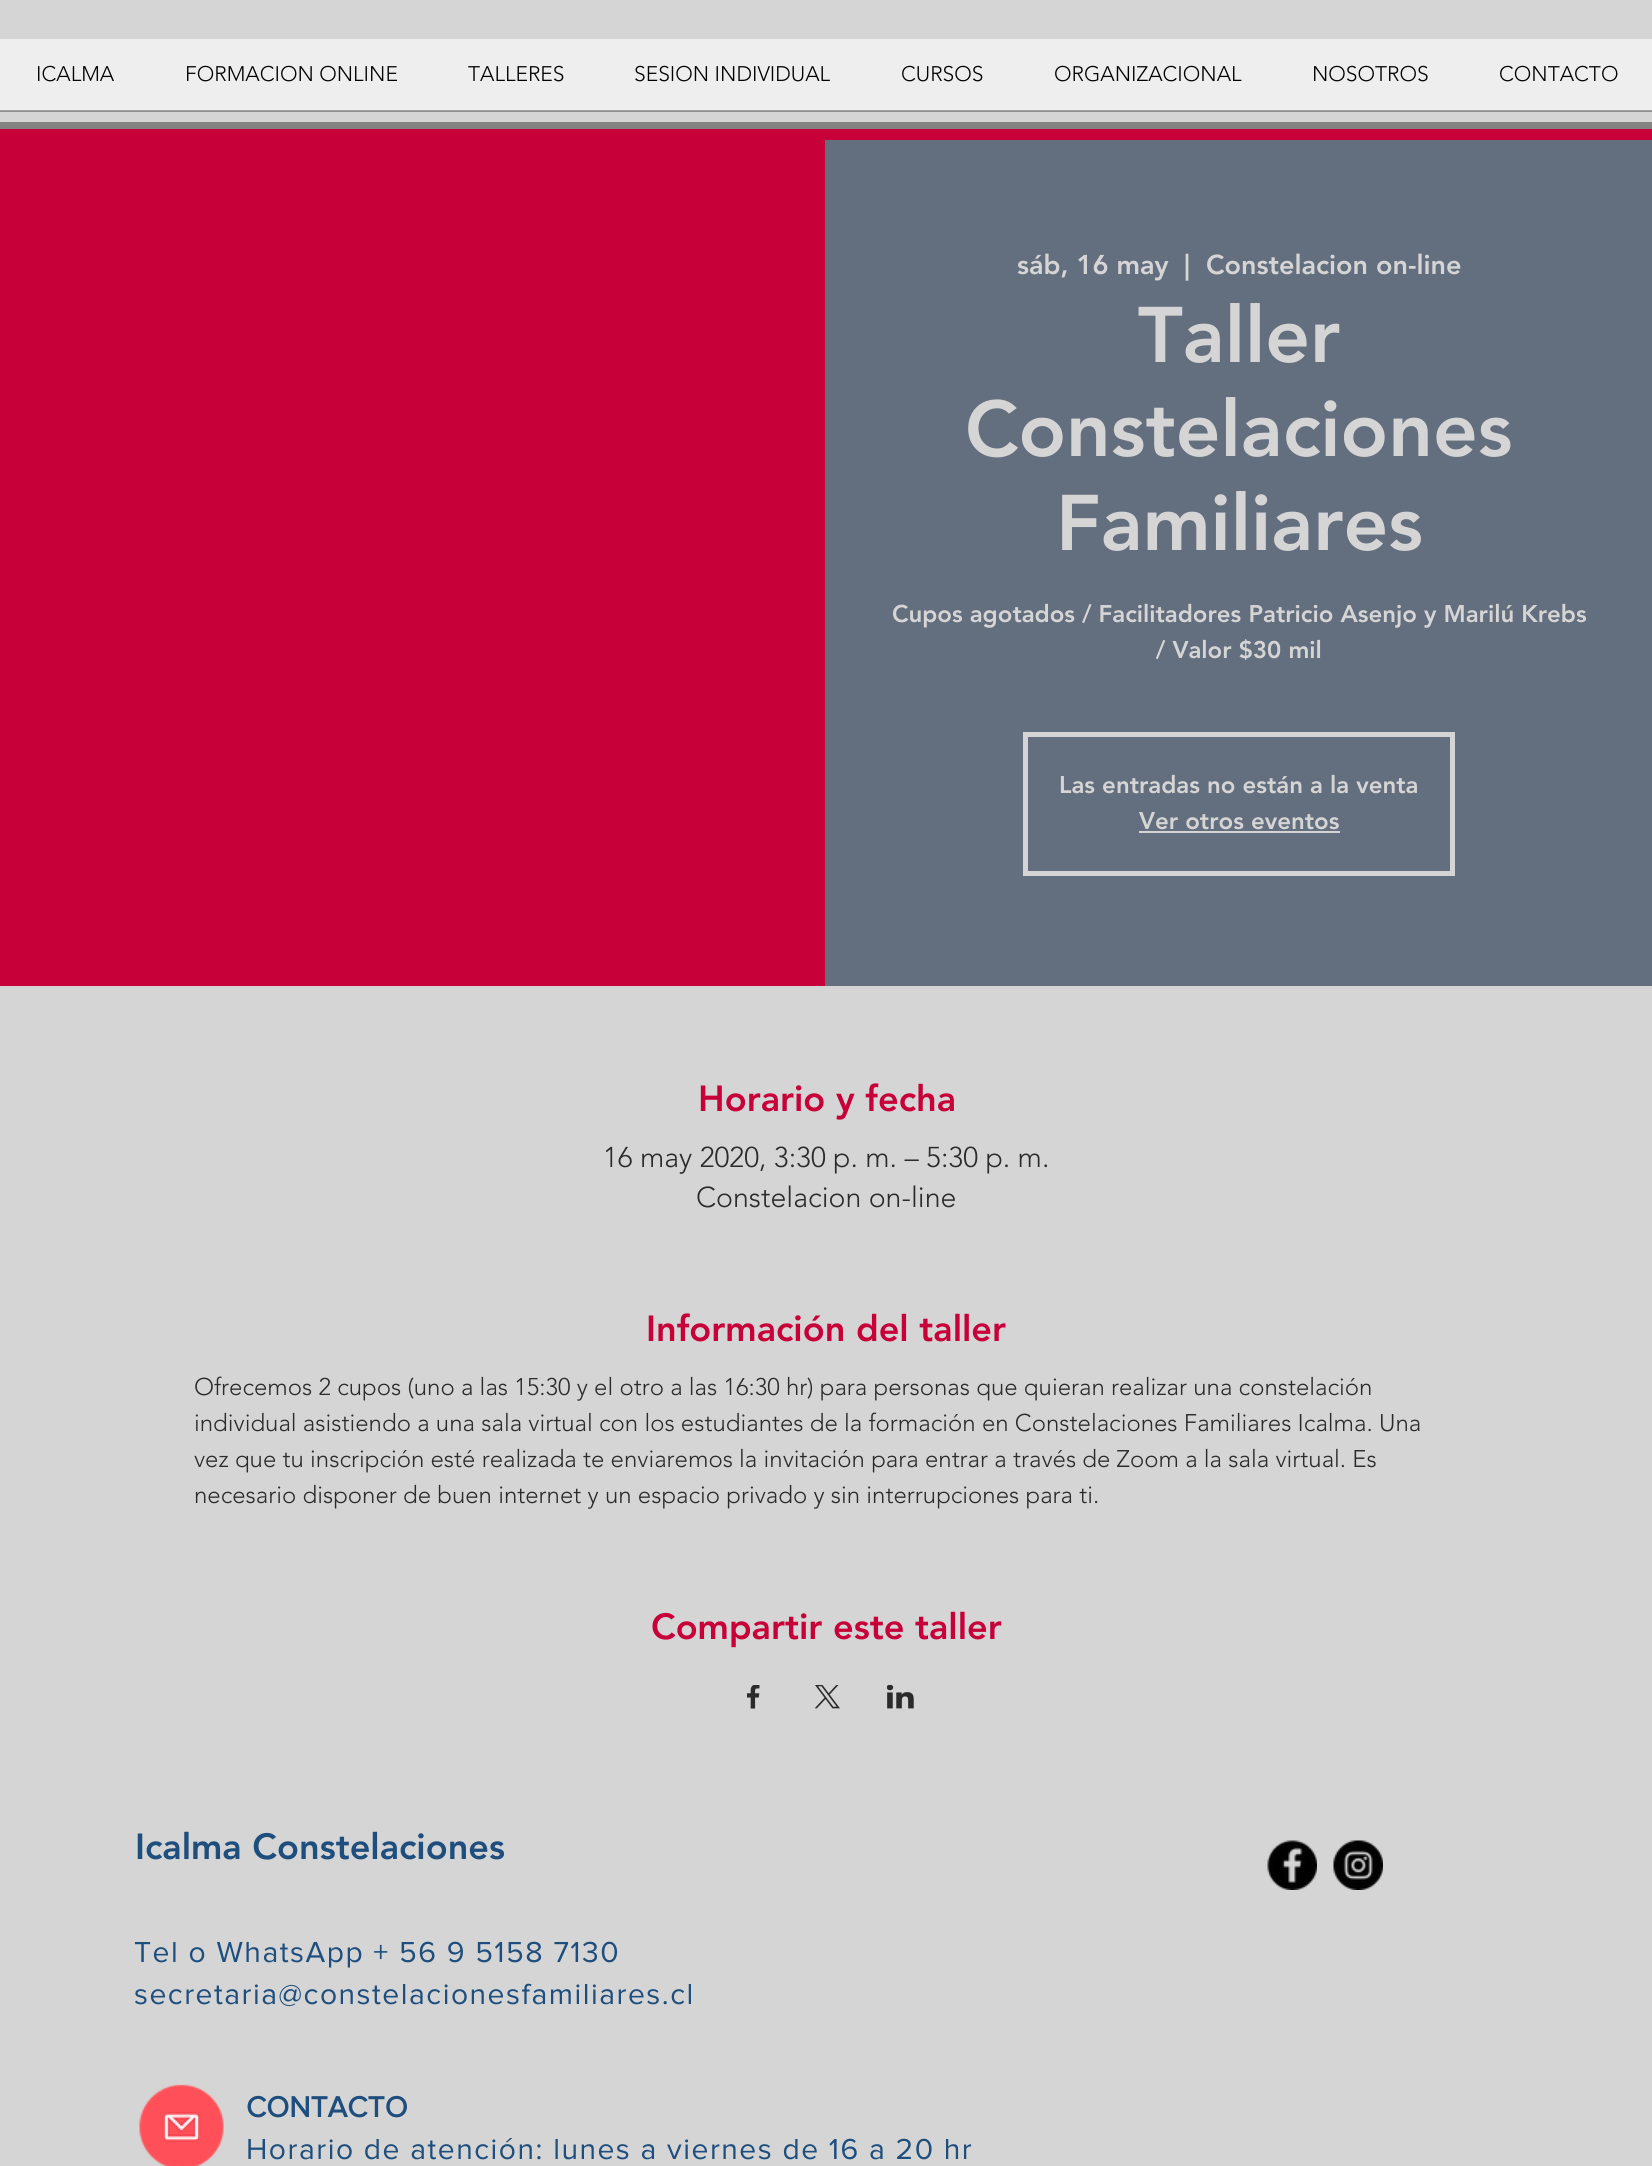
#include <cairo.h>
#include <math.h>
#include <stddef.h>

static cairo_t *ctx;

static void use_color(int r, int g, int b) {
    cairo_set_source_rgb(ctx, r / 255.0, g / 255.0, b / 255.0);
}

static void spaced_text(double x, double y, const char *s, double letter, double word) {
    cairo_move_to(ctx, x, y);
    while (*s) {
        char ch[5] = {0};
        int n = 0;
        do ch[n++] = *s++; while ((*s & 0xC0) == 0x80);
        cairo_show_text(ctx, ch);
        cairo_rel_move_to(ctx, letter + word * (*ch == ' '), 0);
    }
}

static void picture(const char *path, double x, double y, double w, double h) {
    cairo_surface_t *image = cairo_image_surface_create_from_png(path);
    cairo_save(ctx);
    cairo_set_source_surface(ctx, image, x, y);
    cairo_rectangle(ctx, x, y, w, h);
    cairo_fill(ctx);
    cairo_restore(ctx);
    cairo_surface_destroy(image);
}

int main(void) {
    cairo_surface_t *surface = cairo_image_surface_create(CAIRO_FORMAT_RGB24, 1652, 2166);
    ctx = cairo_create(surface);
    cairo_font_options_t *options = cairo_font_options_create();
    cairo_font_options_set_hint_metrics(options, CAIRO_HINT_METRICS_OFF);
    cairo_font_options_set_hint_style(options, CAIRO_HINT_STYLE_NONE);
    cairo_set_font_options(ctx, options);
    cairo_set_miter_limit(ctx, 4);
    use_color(199, 0, 57);
    cairo_paint(ctx);
    use_color(214, 213, 213);
    cairo_rectangle(ctx, 0, 0, 1652, 122);
    cairo_fill(ctx);
    use_color(144, 144, 144);
    cairo_rectangle(ctx, 0, 111, 1652, 1);
    cairo_fill(ctx);
    use_color(133, 130, 130);
    cairo_rectangle(ctx, 0, 122, 1652, 7);
    cairo_fill(ctx);
    use_color(239, 238, 238);
    cairo_rectangle(ctx, 0, 39, 1652, 71);
    cairo_fill(ctx);
    use_color(161, 160, 160);
    cairo_rectangle(ctx, 0, 110, 1652, 1);
    cairo_fill(ctx);
    cairo_select_font_face(ctx, "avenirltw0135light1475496 Light", CAIRO_FONT_SLANT_NORMAL, CAIRO_FONT_WEIGHT_NORMAL);
    cairo_set_font_size(ctx, 21);
    use_color(0, 0, 0);
    cairo_move_to(ctx, 36, 81);
    cairo_show_text(ctx, "ICALMA");
    cairo_move_to(ctx, 185, 81);
    cairo_show_text(ctx, "FORMACION ONLINE");
    cairo_move_to(ctx, 468, 81);
    cairo_show_text(ctx, "TALLERES");
    cairo_move_to(ctx, 634, 81);
    cairo_show_text(ctx, "SESION INDIVIDUAL");
    cairo_move_to(ctx, 901, 81);
    cairo_show_text(ctx, "CURSOS");
    cairo_move_to(ctx, 1054, 81);
    cairo_show_text(ctx, "ORGANIZACIONAL");
    cairo_move_to(ctx, 1312, 81);
    cairo_show_text(ctx, "NOSOTROS");
    cairo_move_to(ctx, 1499, 81);
    cairo_show_text(ctx, "CONTACTO");
    use_color(99, 110, 126);
    cairo_rectangle(ctx, 825, 140, 827, 846);
    cairo_fill(ctx);
    cairo_select_font_face(ctx, "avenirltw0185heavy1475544 Black", CAIRO_FONT_SLANT_NORMAL, CAIRO_FONT_WEIGHT_NORMAL);
    cairo_set_font_size(ctx, 27);
    use_color(214, 213, 213);
    cairo_move_to(ctx, 1017, 274);
    cairo_show_text(ctx, "sáb, 16 may");
    cairo_move_to(ctx, 1184, 274);
    cairo_show_text(ctx, "|");
    cairo_move_to(ctx, 1206, 274);
    cairo_show_text(ctx, "Constelacion on-line");
    cairo_set_font_size(ctx, 78);
    cairo_move_to(ctx, 1138, 362);
    cairo_show_text(ctx, "Taller");
    cairo_move_to(ctx, 965, 456);
    cairo_show_text(ctx, "Constelaciones");
    cairo_move_to(ctx, 1056, 550);
    cairo_show_text(ctx, "Familiares");
    cairo_set_font_size(ctx, 24);
    cairo_move_to(ctx, 892, 622);
    cairo_show_text(ctx, "Cupos agotados / Facilitadores Patricio Asenjo y Marilú Krebs");
    cairo_move_to(ctx, 1156, 658);
    cairo_show_text(ctx, "/ Valor $30 mil");
    cairo_rectangle(ctx, 1025.5, 734.5, 427, 139);
    cairo_set_line_width(ctx, 5);
    cairo_stroke(ctx);
    cairo_move_to(ctx, 1059, 793);
    cairo_show_text(ctx, "Las entradas no están a la venta");
    cairo_move_to(ctx, 1139, 829);
    cairo_show_text(ctx, "Ver otros eventos");
    cairo_rectangle(ctx, 1139, 831, 201, 2);
    cairo_fill(ctx);
    cairo_rectangle(ctx, 0, 986, 1652, 1180);
    cairo_fill(ctx);
    cairo_set_font_size(ctx, 36);
    use_color(199, 0, 57);
    cairo_move_to(ctx, 698, 1111);
    cairo_show_text(ctx, "Horario y fecha");
    cairo_select_font_face(ctx, "avenirltw0135light1475496 Light", CAIRO_FONT_SLANT_NORMAL, CAIRO_FONT_WEIGHT_NORMAL);
    cairo_set_font_size(ctx, 28.5);
    use_color(44, 43, 43);
    cairo_move_to(ctx, 603, 1167);
    cairo_show_text(ctx, "16 may 2020, 3:30 p. m. – 5:30 p. m.");
    cairo_move_to(ctx, 696, 1207);
    cairo_show_text(ctx, "Constelacion on-line");
    cairo_select_font_face(ctx, "avenirltw0185heavy1475544 Black", CAIRO_FONT_SLANT_NORMAL, CAIRO_FONT_WEIGHT_NORMAL);
    cairo_set_font_size(ctx, 36);
    use_color(199, 0, 57);
    cairo_move_to(ctx, 646, 1341);
    cairo_show_text(ctx, "Información del taller");
    cairo_select_font_face(ctx, "avenirltw0135light1475496 Light", CAIRO_FONT_SLANT_NORMAL, CAIRO_FONT_WEIGHT_NORMAL);
    cairo_set_font_size(ctx, 24);
    use_color(44, 43, 43);
    cairo_move_to(ctx, 194, 1395);
    cairo_show_text(ctx, "Ofrecemos 2 cupos (uno a las 15:30 y el otro a las 16:30 hr) para personas que quieran realizar una constelación");
    cairo_move_to(ctx, 194, 1431);
    cairo_show_text(ctx, "individual asistiendo a una sala virtual con los estudiantes de la formación en Constelaciones Familiares Icalma. Una");
    cairo_move_to(ctx, 194, 1467);
    cairo_show_text(ctx, "vez que tu inscripción esté realizada te enviaremos la invitación para entrar a través de Zoom a la sala virtual. Es");
    cairo_move_to(ctx, 194, 1503);
    cairo_show_text(ctx, "necesario disponer de buen internet y un espacio privado y sin interrupciones para ti.");
    cairo_select_font_face(ctx, "avenirltw0185heavy1475544 Black", CAIRO_FONT_SLANT_NORMAL, CAIRO_FONT_WEIGHT_NORMAL);
    cairo_set_font_size(ctx, 36);
    use_color(199, 0, 57);
    cairo_move_to(ctx, 651, 1639);
    cairo_show_text(ctx, "Compartir este taller");
    picture("img1.png", 747, 1685, 13, 24);
    picture("img2.png", 814, 1685, 26, 24);
    picture("img3.png", 887, 1685, 27, 24);
    use_color(29, 78, 125);
    cairo_move_to(ctx, 135, 1859);
    cairo_show_text(ctx, "Icalma Constelaciones");
    picture("img4.png", 1267, 1840, 50, 50);
    picture("img5.png", 1333, 1840, 50, 50);
    cairo_select_font_face(ctx, "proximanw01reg", CAIRO_FONT_SLANT_NORMAL, CAIRO_FONT_WEIGHT_NORMAL);
    cairo_set_font_size(ctx, 30);
    spaced_text(134, 1962, "Tel o WhatsApp + 56 9 5158 7130", 1.5, 0);
    spaced_text(134, 2004, "secretaria@constelacionesfamiliares.cl", 1.5, 0);
    picture("img6.png", 139, 2084, 85, 82);
    cairo_select_font_face(ctx, "proximanw01reg", CAIRO_FONT_SLANT_NORMAL, CAIRO_FONT_WEIGHT_BOLD);
    cairo_move_to(ctx, 246, 2117);
    cairo_show_text(ctx, "CONTACTO");
    cairo_select_font_face(ctx, "proximanw01reg", CAIRO_FONT_SLANT_NORMAL, CAIRO_FONT_WEIGHT_NORMAL);
    spaced_text(246, 2159, "Horario de atención: lunes a viernes de 16 a 20 hr", 1.5, 0);
    cairo_surface_write_to_png(surface, "result.png");
    cairo_font_options_destroy(options);
    cairo_destroy(ctx);
    cairo_surface_destroy(surface);
    return 0;
}
